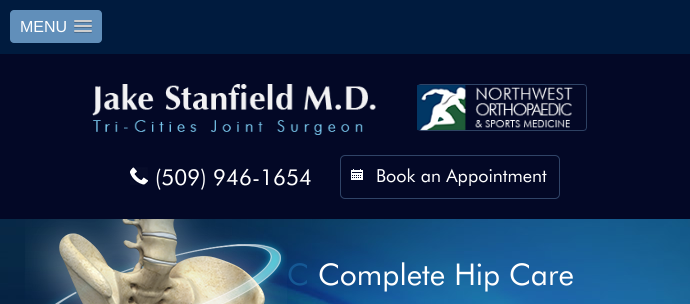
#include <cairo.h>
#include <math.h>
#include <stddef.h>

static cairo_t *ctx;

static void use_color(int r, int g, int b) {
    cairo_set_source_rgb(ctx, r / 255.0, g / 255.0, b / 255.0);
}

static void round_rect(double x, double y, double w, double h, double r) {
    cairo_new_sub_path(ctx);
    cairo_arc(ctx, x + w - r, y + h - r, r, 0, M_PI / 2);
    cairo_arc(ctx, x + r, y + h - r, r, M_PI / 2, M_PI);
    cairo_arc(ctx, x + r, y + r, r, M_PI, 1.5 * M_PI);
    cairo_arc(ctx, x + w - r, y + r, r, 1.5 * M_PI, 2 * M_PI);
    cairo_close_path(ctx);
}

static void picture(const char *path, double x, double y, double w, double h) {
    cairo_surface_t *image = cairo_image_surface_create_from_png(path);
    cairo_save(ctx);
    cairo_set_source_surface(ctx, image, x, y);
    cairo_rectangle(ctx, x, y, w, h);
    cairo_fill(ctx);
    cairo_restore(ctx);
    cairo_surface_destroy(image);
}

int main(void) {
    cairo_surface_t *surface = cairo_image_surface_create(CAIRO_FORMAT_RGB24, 690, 304);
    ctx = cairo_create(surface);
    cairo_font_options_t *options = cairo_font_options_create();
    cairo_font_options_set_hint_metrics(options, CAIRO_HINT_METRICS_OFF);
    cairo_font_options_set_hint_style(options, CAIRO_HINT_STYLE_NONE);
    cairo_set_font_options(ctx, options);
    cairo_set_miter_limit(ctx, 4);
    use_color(0, 27, 62);
    cairo_paint(ctx);
    use_color(97, 143, 186);
    round_rect(10, 10, 92, 33, 4);
    cairo_fill(ctx);
    cairo_select_font_face(ctx, "Liberation Sans", CAIRO_FONT_SLANT_NORMAL, CAIRO_FONT_WEIGHT_NORMAL);
    cairo_set_font_size(ctx, 16);
    use_color(255, 255, 255);
    cairo_move_to(ctx, 20, 32);
    cairo_show_text(ctx, "MENU");
    use_color(73, 107, 140);
    cairo_new_path(ctx);
    cairo_move_to(ctx, 74, 21.5);
    cairo_curve_to(ctx, 73, 23.5, 77.5, 23, 77.5, 23);
    cairo_line_to(ctx, 88.5, 23);
    cairo_curve_to(ctx, 88.5, 23, 93, 23.5, 92, 21.5);
    cairo_curve_to(ctx, 91, 22.5, 84.5, 22, 83, 22);
    cairo_curve_to(ctx, 81.5, 22, 75, 22.5, 74, 21.5);
    cairo_close_path(ctx);
    cairo_fill(ctx);
    use_color(206, 206, 206);
    round_rect(74, 20, 18, 2, 1);
    cairo_fill(ctx);
    use_color(73, 107, 140);
    cairo_new_path(ctx);
    cairo_move_to(ctx, 74, 26.5);
    cairo_curve_to(ctx, 73, 28.5, 77.5, 28, 77.5, 28);
    cairo_line_to(ctx, 88.5, 28);
    cairo_curve_to(ctx, 88.5, 28, 93, 28.5, 92, 26.5);
    cairo_curve_to(ctx, 91, 27.5, 84.5, 27, 83, 27);
    cairo_curve_to(ctx, 81.5, 27, 75, 27.5, 74, 26.5);
    cairo_close_path(ctx);
    cairo_fill(ctx);
    use_color(206, 206, 206);
    round_rect(74, 25, 18, 2, 1);
    cairo_fill(ctx);
    use_color(73, 107, 140);
    cairo_new_path(ctx);
    cairo_move_to(ctx, 74, 31.5);
    cairo_curve_to(ctx, 73, 33.5, 77.5, 33, 77.5, 33);
    cairo_line_to(ctx, 88.5, 33);
    cairo_curve_to(ctx, 88.5, 33, 93, 33.5, 92, 31.5);
    cairo_curve_to(ctx, 91, 32.5, 84.5, 32, 83, 32);
    cairo_curve_to(ctx, 81.5, 32, 75, 32.5, 74, 31.5);
    cairo_close_path(ctx);
    cairo_fill(ctx);
    use_color(206, 206, 206);
    round_rect(74, 30, 18, 2, 1);
    cairo_fill(ctx);
    use_color(3, 8, 38);
    cairo_rectangle(ctx, 0, 54, 690, 165);
    cairo_fill(ctx);
    picture("img1.png", 92, 84, 284, 51);
    picture("img2.png", 417, 84, 170, 47);
    picture("img3.png", 130, 167, 18, 18);
    cairo_select_font_face(ctx, "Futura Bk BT", CAIRO_FONT_SLANT_NORMAL, CAIRO_FONT_WEIGHT_NORMAL);
    cairo_set_font_size(ctx, 22);
    use_color(255, 255, 255);
    cairo_move_to(ctx, 155, 185);
    cairo_show_text(ctx, "(509) 946-1654");
    picture("img4.png", 351, 169, 12, 11);
    round_rect(340.5, 155.5, 219, 43, 4.5);
    use_color(48, 68, 103);
    cairo_set_line_width(ctx, 1);
    cairo_stroke(ctx);
    cairo_set_font_size(ctx, 18);
    use_color(255, 255, 255);
    cairo_move_to(ctx, 376, 182);
    cairo_show_text(ctx, "Book an Appointment");
    picture("img5.png", 0, 219, 690, 85);
    cairo_set_font_size(ctx, 30);
    use_color(21, 88, 148);
    cairo_move_to(ctx, 287, 285);
    cairo_show_text(ctx, "C");
    picture("img6.png", 25, 219, 262, 85);
    use_color(255, 255, 255);
    cairo_move_to(ctx, 318, 285);
    cairo_show_text(ctx, "Complete Hip Care");
    cairo_surface_write_to_png(surface, "result.png");
    cairo_font_options_destroy(options);
    cairo_destroy(ctx);
    cairo_surface_destroy(surface);
    return 0;
}
